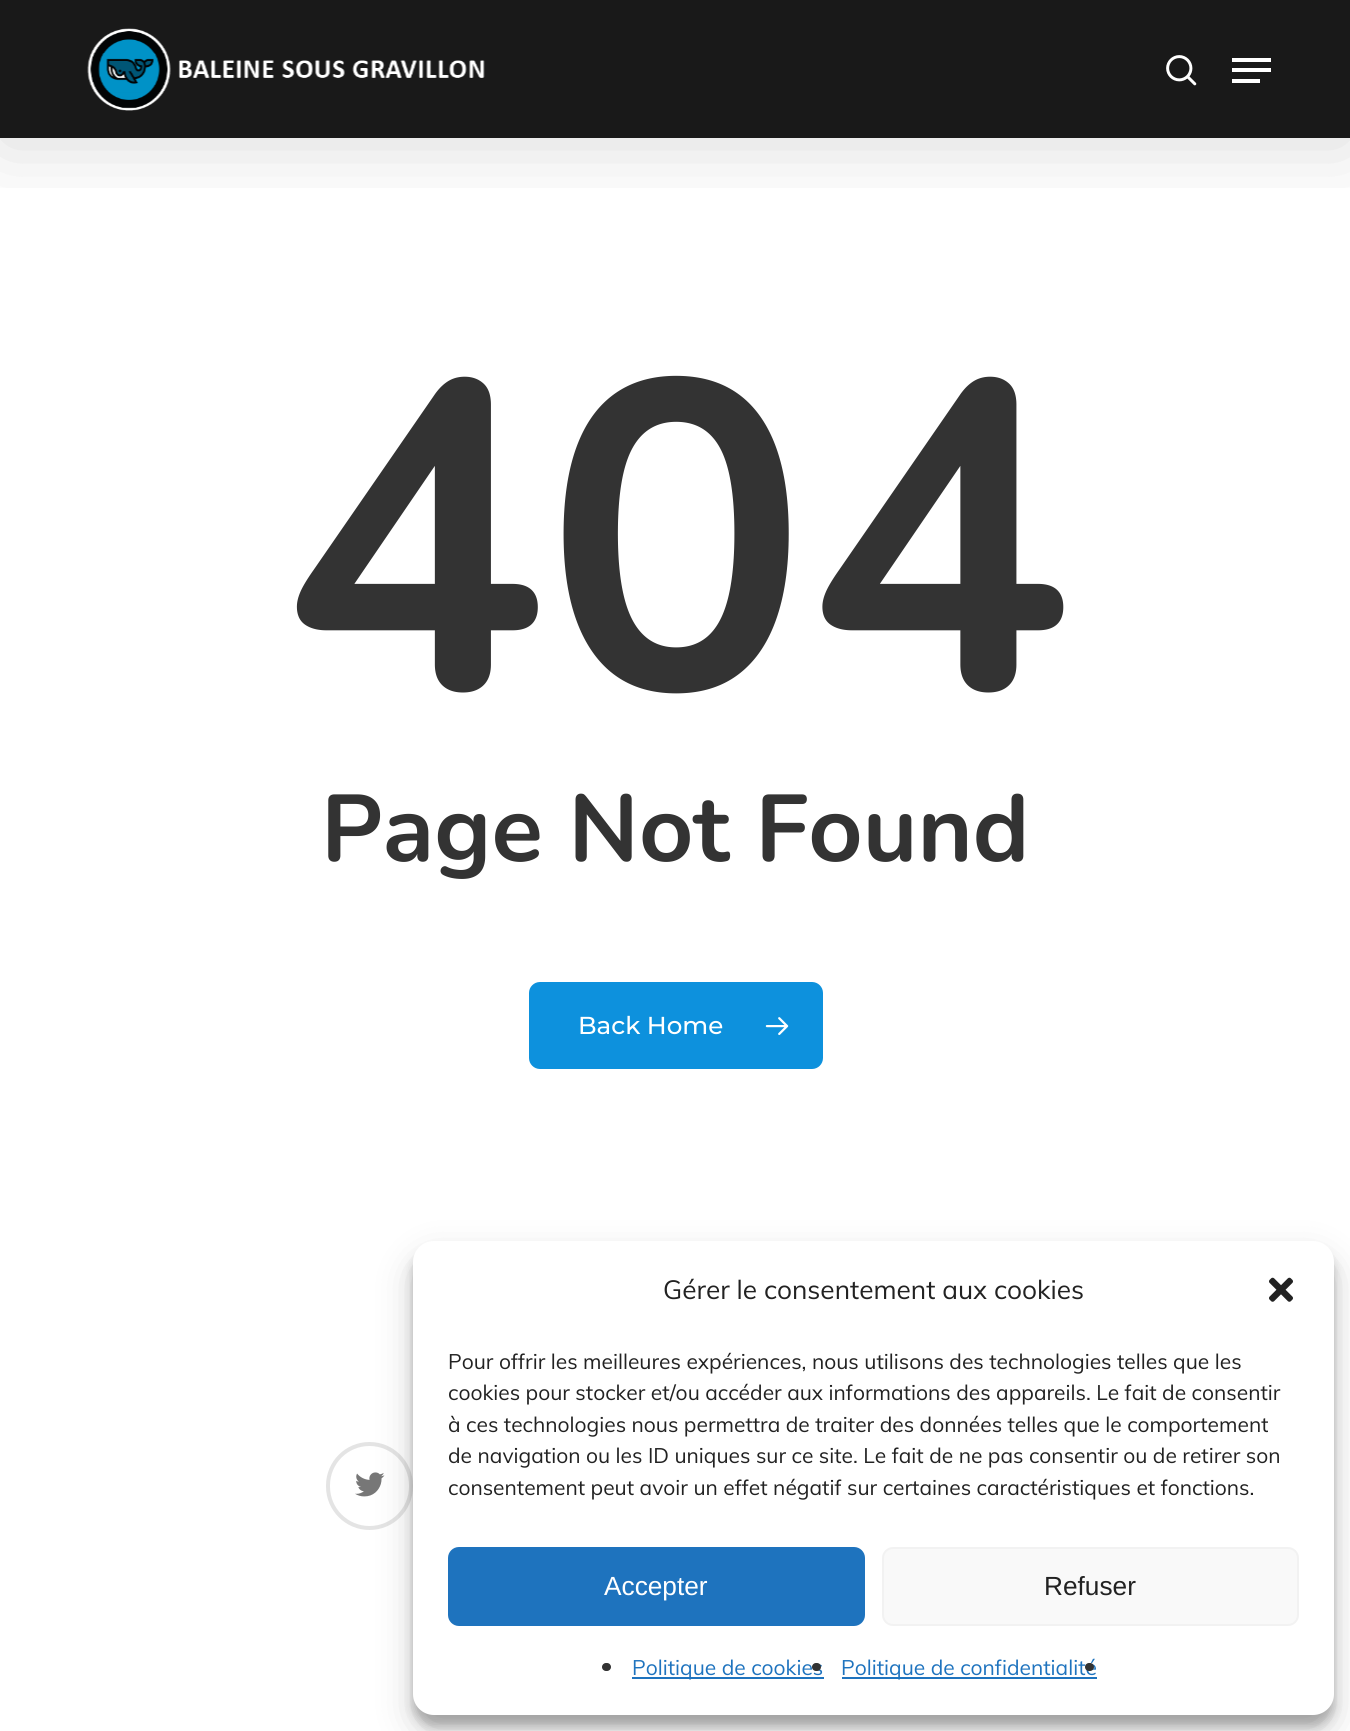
#include <cairo.h>
#include <math.h>
#include <stddef.h>

static cairo_t *ctx;

static void use_color(int r, int g, int b) {
    cairo_set_source_rgb(ctx, r / 255.0, g / 255.0, b / 255.0);
}

static void round_rect(double x, double y, double w, double h, double r) {
    cairo_new_sub_path(ctx);
    cairo_arc(ctx, x + w - r, y + h - r, r, 0, M_PI / 2);
    cairo_arc(ctx, x + r, y + h - r, r, M_PI / 2, M_PI);
    cairo_arc(ctx, x + r, y + r, r, M_PI, 1.5 * M_PI);
    cairo_arc(ctx, x + w - r, y + r, r, 1.5 * M_PI, 2 * M_PI);
    cairo_close_path(ctx);
}

static void shadow(double x, double y, double w, double h, double r, double blur, double alpha) {
    cairo_push_group_with_content(ctx, CAIRO_CONTENT_ALPHA);
    cairo_set_operator(ctx, CAIRO_OPERATOR_SOURCE);
    for (int i = 15; i >= -15 && fmin(w, h) + blur * i / 3 > 0; i -= 2) {
        double e = blur * i / 6;
        cairo_set_source_rgba(ctx, 0, 0, 0, alpha * erfc((i - 1) / 8.5) / 2);
        round_rect(x - e, y - e, w + 2 * e, h + 2 * e, fmax(0, fmin(r + e + blur * .6, fmin(w, h) / 2 + e)));
        cairo_fill(ctx);
    }
    cairo_pattern_t *soft = cairo_pop_group(ctx);
    cairo_mask(ctx, soft);
    cairo_pattern_destroy(soft);
}

static void picture(const char *path, double x, double y, double w, double h) {
    cairo_surface_t *image = cairo_image_surface_create_from_png(path);
    cairo_save(ctx);
    cairo_set_source_surface(ctx, image, x, y);
    cairo_rectangle(ctx, x, y, w, h);
    cairo_fill(ctx);
    cairo_restore(ctx);
    cairo_surface_destroy(image);
}

int main(void) {
    cairo_surface_t *surface = cairo_image_surface_create(CAIRO_FORMAT_RGB24, 1350, 1731);
    ctx = cairo_create(surface);
    cairo_font_options_t *options = cairo_font_options_create();
    cairo_font_options_set_hint_metrics(options, CAIRO_HINT_METRICS_OFF);
    cairo_font_options_set_hint_style(options, CAIRO_HINT_STYLE_NONE);
    cairo_set_font_options(ctx, options);
    cairo_set_miter_limit(ctx, 4);
    use_color(255, 255, 255);
    cairo_paint(ctx);
    use_color(25, 25, 25);
    cairo_rectangle(ctx, 0, 0, 1350, 138);
    cairo_fill(ctx);
    cairo_save(ctx);
    cairo_rectangle(ctx, 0, 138, 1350, 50);
    cairo_clip(ctx);
    use_color(0, 0, 0);
    shadow(0, 5, 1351, 139, 0, 39.5, 0.15);
    cairo_restore(ctx);
    picture("img1.png", 87, 28, 398, 83);
    picture("img2.png", 1166, 55, 31, 31);
    use_color(255, 255, 255);
    cairo_rectangle(ctx, 1232, 58, 39, 4);
    cairo_fill(ctx);
    cairo_rectangle(ctx, 1232, 79, 28, 4);
    cairo_fill(ctx);
    cairo_rectangle(ctx, 1232, 68, 39, 4);
    cairo_fill(ctx);
    cairo_select_font_face(ctx, "Nunito", CAIRO_FONT_SLANT_NORMAL, CAIRO_FONT_WEIGHT_BOLD);
    cairo_set_font_size(ctx, 438);
    use_color(51, 51, 51);
    cairo_move_to(ctx, 282, 689);
    cairo_show_text(ctx, "404");
    cairo_set_font_size(ctx, 94.5);
    cairo_move_to(ctx, 321, 861);
    cairo_show_text(ctx, "Page Not Found");
    use_color(13, 145, 221);
    round_rect(529, 982, 294, 87, 11);
    cairo_fill(ctx);
    cairo_select_font_face(ctx, "Montserrat Thin", CAIRO_FONT_SLANT_NORMAL, CAIRO_FONT_WEIGHT_NORMAL);
    cairo_set_font_size(ctx, 24.5);
    use_color(255, 255, 255);
    cairo_move_to(ctx, 578, 1034);
    cairo_show_text(ctx, "Back Home");
    picture("img3.png", 765, 1017, 24, 18);
    picture("img4.png", 355, 1472, 30, 25);
    round_rect(328, 1444, 83, 84, 41.5);
    use_color(228, 228, 228);
    cairo_set_line_width(ctx, 4);
    cairo_stroke(ctx);
    use_color(0, 0, 0);
    shadow(413, 1251, 921, 475, 21, 5, 0.23);
    shadow(413, 1258, 921, 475, 21, 17.5, 0.19);
    use_color(255, 255, 255);
    round_rect(413, 1241, 921, 474, 21);
    cairo_fill(ctx);
    cairo_select_font_face(ctx, "Muli", CAIRO_FONT_SLANT_NORMAL, CAIRO_FONT_WEIGHT_NORMAL);
    cairo_set_font_size(ctx, 26.25);
    use_color(34, 34, 34);
    cairo_move_to(ctx, 663, 1299);
    cairo_show_text(ctx, "Gérer le consentement aux cookies");
    picture("img5.png", 1269, 1277, 24, 25);
    cairo_set_font_size(ctx, 21);
    cairo_move_to(ctx, 448, 1369);
    cairo_show_text(ctx, "Pour offrir les meilleures expériences, nous utilisons des technologies telles que les");
    cairo_move_to(ctx, 448, 1400);
    cairo_show_text(ctx, "cookies pour stocker et/ou accéder aux informations des appareils. Le fait de consentir");
    cairo_move_to(ctx, 448, 1432);
    cairo_show_text(ctx, "à ces technologies nous permettra de traiter des données telles que le comportement");
    cairo_move_to(ctx, 448, 1463);
    cairo_show_text(ctx, "de navigation ou les ID uniques sur ce site. Le fait de ne pas consentir ou de retirer son");
    cairo_move_to(ctx, 448, 1495);
    cairo_show_text(ctx, "consentement peut avoir un effet négatif sur certaines caractéristiques et fonctions.");
    use_color(30, 115, 190);
    round_rect(449, 1548, 415, 77, 10);
    cairo_fill_preserve(ctx);
    cairo_set_line_width(ctx, 2);
    cairo_stroke(ctx);
    cairo_select_font_face(ctx, "Liberation Sans", CAIRO_FONT_SLANT_NORMAL, CAIRO_FONT_WEIGHT_NORMAL);
    cairo_set_font_size(ctx, 26.25);
    use_color(255, 255, 255);
    cairo_move_to(ctx, 604, 1595);
    cairo_show_text(ctx, "Accepter");
    use_color(249, 249, 249);
    round_rect(883, 1548, 415, 77, 10);
    cairo_fill_preserve(ctx);
    use_color(242, 242, 242);
    cairo_stroke(ctx);
    use_color(34, 34, 34);
    cairo_move_to(ctx, 1044, 1595);
    cairo_show_text(ctx, "Refuser");
    use_color(51, 51, 51);
    round_rect(602, 1663, 9, 8, 4);
    cairo_fill(ctx);
    use_color(30, 115, 190);
    cairo_rectangle(ctx, 632, 1677, 192, 2);
    cairo_fill(ctx);
    cairo_select_font_face(ctx, "Muli", CAIRO_FONT_SLANT_NORMAL, CAIRO_FONT_WEIGHT_NORMAL);
    cairo_set_font_size(ctx, 21);
    cairo_move_to(ctx, 632, 1675);
    cairo_show_text(ctx, "Politique de cookies");
    use_color(51, 51, 51);
    round_rect(812, 1663, 9, 8, 4);
    cairo_fill(ctx);
    use_color(30, 115, 190);
    cairo_rectangle(ctx, 842, 1677, 255, 2);
    cairo_fill(ctx);
    cairo_move_to(ctx, 841, 1675);
    cairo_show_text(ctx, "Politique de confidentialité");
    use_color(51, 51, 51);
    round_rect(1085, 1663, 9, 8, 4);
    cairo_fill(ctx);
    cairo_surface_write_to_png(surface, "result.png");
    cairo_font_options_destroy(options);
    cairo_destroy(ctx);
    cairo_surface_destroy(surface);
    return 0;
}
